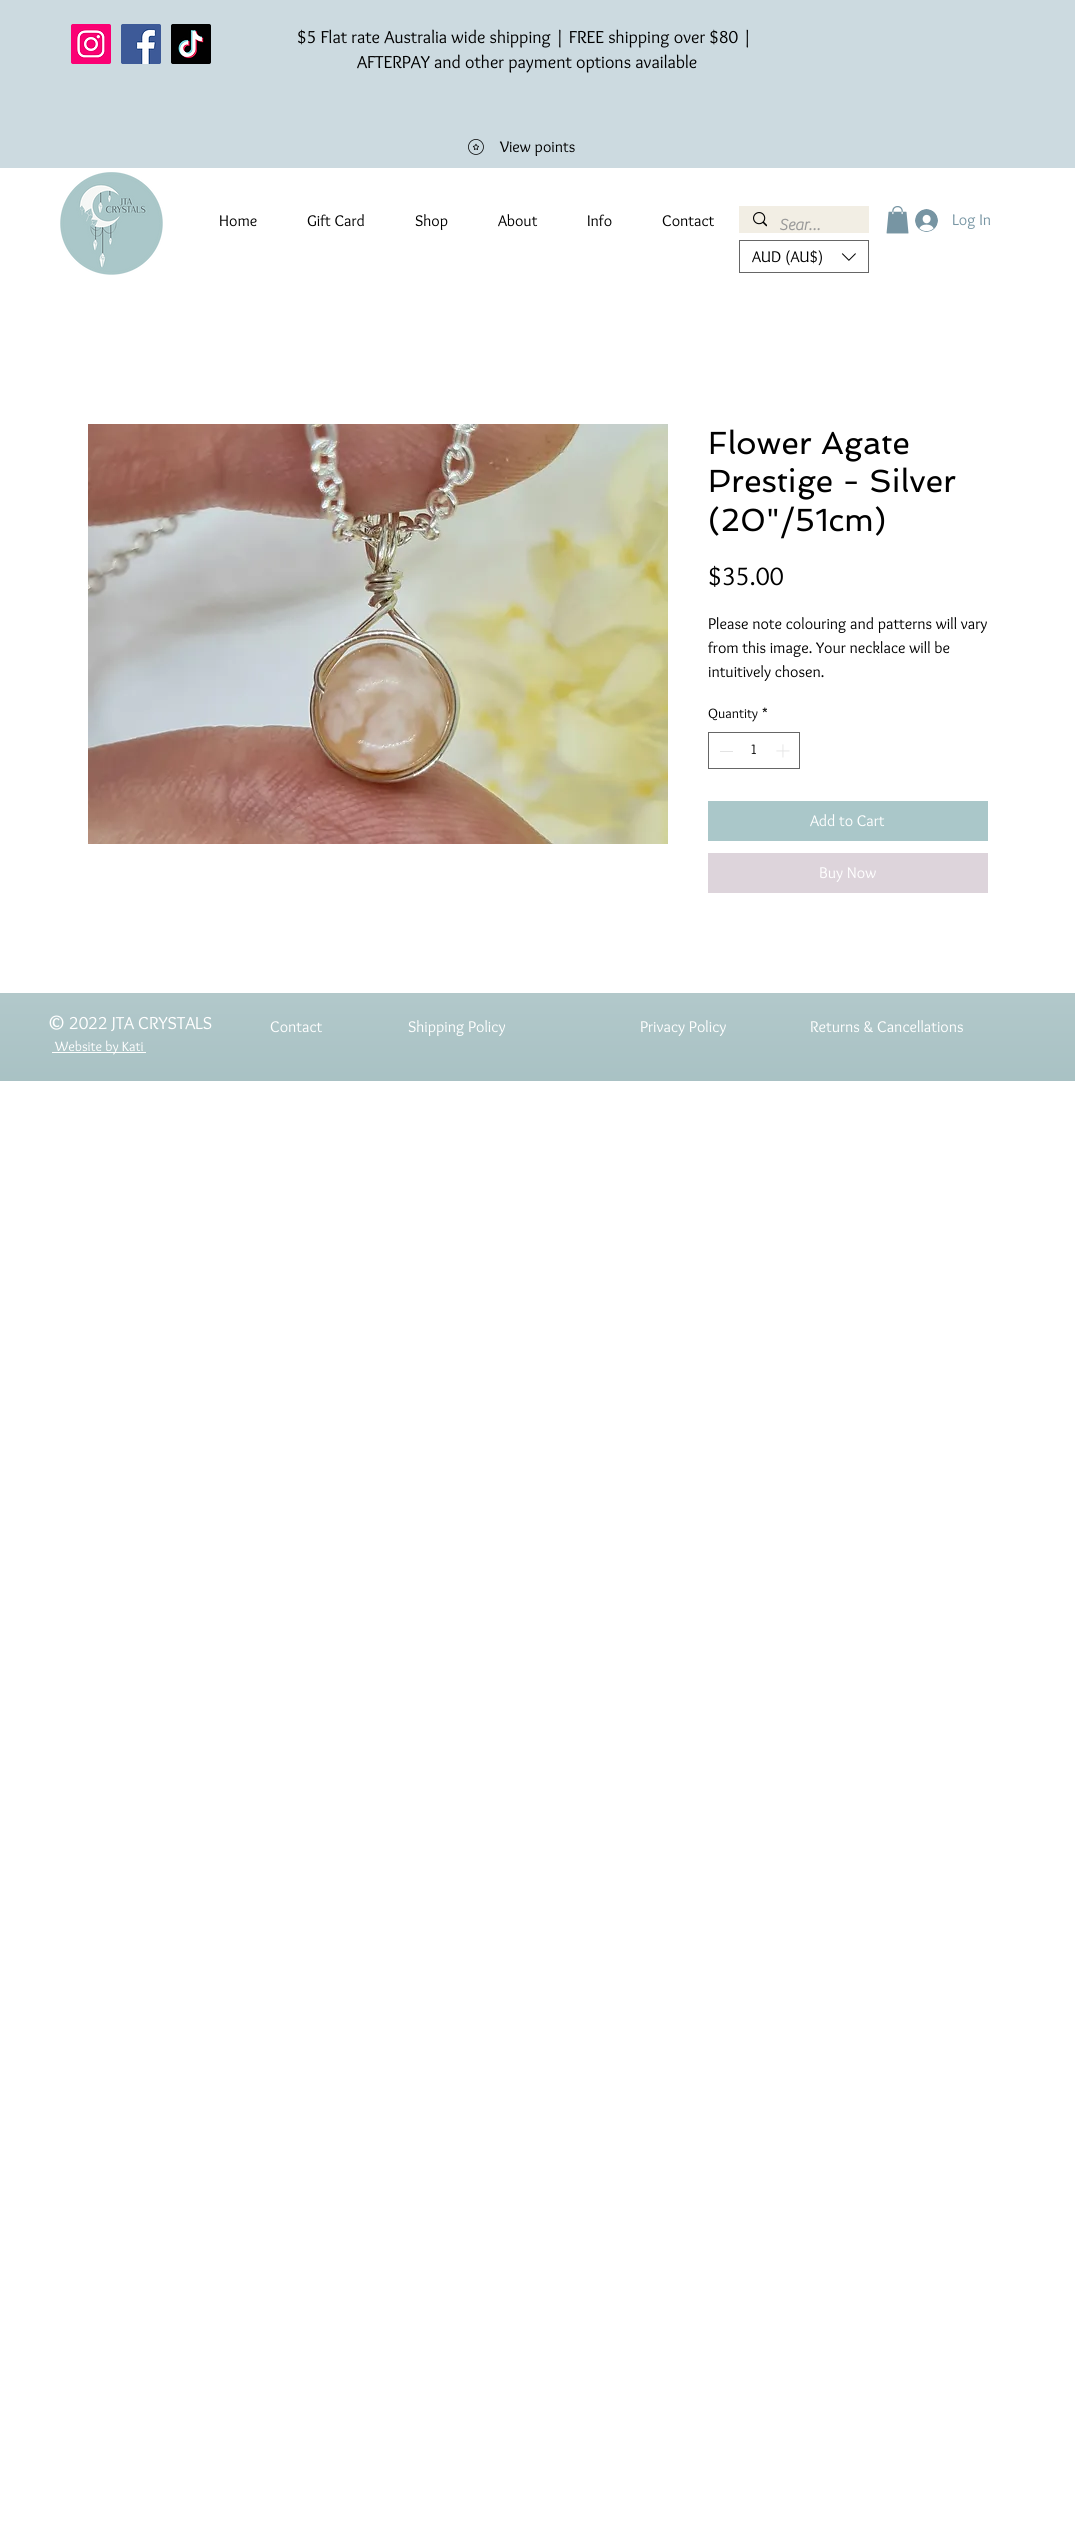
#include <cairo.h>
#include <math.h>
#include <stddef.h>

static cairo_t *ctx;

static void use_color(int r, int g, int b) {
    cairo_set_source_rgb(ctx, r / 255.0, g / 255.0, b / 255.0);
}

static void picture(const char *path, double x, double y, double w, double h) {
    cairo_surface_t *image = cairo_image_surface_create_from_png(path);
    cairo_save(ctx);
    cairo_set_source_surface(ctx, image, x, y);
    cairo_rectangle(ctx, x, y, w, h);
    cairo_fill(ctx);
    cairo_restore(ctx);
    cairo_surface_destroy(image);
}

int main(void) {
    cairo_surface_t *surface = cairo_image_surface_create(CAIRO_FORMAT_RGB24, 1075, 2524);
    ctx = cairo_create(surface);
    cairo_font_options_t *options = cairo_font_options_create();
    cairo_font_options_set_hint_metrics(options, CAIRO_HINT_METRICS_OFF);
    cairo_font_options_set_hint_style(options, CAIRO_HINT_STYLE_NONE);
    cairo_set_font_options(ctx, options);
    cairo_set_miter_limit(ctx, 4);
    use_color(255, 255, 255);
    cairo_paint(ctx);
    use_color(204, 218, 224);
    cairo_rectangle(ctx, 0, 0, 1075, 168);
    cairo_fill(ctx);
    picture("img1.png", 71, 24, 40, 40);
    picture("img2.png", 121, 24, 40, 40);
    picture("img3.png", 171, 24, 40, 40);
    cairo_select_font_face(ctx, "Overlock", CAIRO_FONT_SLANT_NORMAL, CAIRO_FONT_WEIGHT_NORMAL);
    cairo_set_font_size(ctx, 18);
    use_color(0, 0, 0);
    cairo_move_to(ctx, 297, 43);
    cairo_show_text(ctx, "$5 Flat rate Australia wide shipping | FREE shipping over $80 |");
    cairo_move_to(ctx, 357, 68);
    cairo_show_text(ctx, "AFTERPAY and other payment options available");
    picture("img4.png", 468, 139, 16, 16);
    cairo_set_font_size(ctx, 16);
    cairo_move_to(ctx, 500, 152);
    cairo_show_text(ctx, "View points");
    picture("img5.png", 60, 172, 103, 103);
    cairo_move_to(ctx, 219, 226);
    cairo_show_text(ctx, "Home");
    cairo_move_to(ctx, 307, 226);
    cairo_show_text(ctx, "Gift Card");
    cairo_move_to(ctx, 415, 226);
    cairo_show_text(ctx, "Shop");
    cairo_move_to(ctx, 498, 226);
    cairo_show_text(ctx, "About");
    cairo_move_to(ctx, 587, 226);
    cairo_show_text(ctx, "Info");
    cairo_move_to(ctx, 662, 226);
    cairo_show_text(ctx, "Contact");
    use_color(242, 238, 228);
    cairo_rectangle(ctx, 739, 206, 130, 27);
    cairo_fill(ctx);
    picture("img6.png", 753, 212, 14, 15);
    cairo_select_font_face(ctx, "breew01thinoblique", CAIRO_FONT_SLANT_NORMAL, CAIRO_FONT_WEIGHT_BOLD);
    use_color(153, 153, 153);
    cairo_move_to(ctx, 779, 230);
    cairo_show_text(ctx, "Sear…");
    picture("img7.png", 886, 206, 23, 28);
    picture("img8.png", 915, 209, 23, 23);
    cairo_select_font_face(ctx, "Overlock", CAIRO_FONT_SLANT_NORMAL, CAIRO_FONT_WEIGHT_NORMAL);
    use_color(119, 149, 163);
    cairo_move_to(ctx, 952, 225);
    cairo_show_text(ctx, "Log In");
    cairo_rectangle(ctx, 739.5, 240.5, 129, 32);
    use_color(102, 102, 102);
    cairo_set_line_width(ctx, 1);
    cairo_stroke(ctx);
    use_color(0, 0, 0);
    cairo_move_to(ctx, 752, 262);
    cairo_show_text(ctx, "AUD (AU$)");
    picture("img9.png", 841, 253, 15, 8);
    picture("img10.png", 88, 424, 580, 420);
    cairo_select_font_face(ctx, "Spinnaker", CAIRO_FONT_SLANT_NORMAL, CAIRO_FONT_WEIGHT_NORMAL);
    cairo_set_font_size(ctx, 32);
    cairo_move_to(ctx, 708, 454);
    cairo_show_text(ctx, "Flower Agate");
    cairo_move_to(ctx, 708, 492);
    cairo_show_text(ctx, "Prestige - Silver");
    cairo_move_to(ctx, 708, 531);
    cairo_show_text(ctx, "(20\"/51cm)");
    cairo_select_font_face(ctx, "Overlock", CAIRO_FONT_SLANT_NORMAL, CAIRO_FONT_WEIGHT_NORMAL);
    cairo_set_font_size(ctx, 26);
    cairo_move_to(ctx, 708, 585);
    cairo_show_text(ctx, "$35.00");
    cairo_set_font_size(ctx, 16);
    cairo_move_to(ctx, 708, 629);
    cairo_show_text(ctx, "Please note colouring and patterns will vary");
    cairo_move_to(ctx, 708, 653);
    cairo_show_text(ctx, "from this image. Your necklace will be");
    cairo_move_to(ctx, 708, 677);
    cairo_show_text(ctx, "intuitively chosen.");
    cairo_set_font_size(ctx, 14);
    cairo_move_to(ctx, 708, 718);
    cairo_show_text(ctx, "Quantity");
    cairo_move_to(ctx, 762, 718);
    cairo_show_text(ctx, "*");
    cairo_rectangle(ctx, 708.5, 732.5, 91, 36);
    use_color(102, 102, 102);
    cairo_stroke(ctx);
    use_color(227, 227, 227);
    cairo_rectangle(ctx, 720, 751, 13, 1);
    cairo_fill(ctx);
    use_color(0, 0, 0);
    cairo_move_to(ctx, 750, 754);
    cairo_show_text(ctx, "1");
    picture("img11.png", 776, 744, 14, 14);
    use_color(170, 199, 201);
    cairo_rectangle(ctx, 708, 801, 280, 40);
    cairo_fill(ctx);
    cairo_set_font_size(ctx, 16);
    use_color(255, 255, 255);
    cairo_move_to(ctx, 810, 826);
    cairo_show_text(ctx, "Add to Cart");
    use_color(221, 212, 219);
    cairo_rectangle(ctx, 708, 853, 280, 40);
    cairo_fill(ctx);
    use_color(255, 255, 255);
    cairo_move_to(ctx, 819, 878);
    cairo_show_text(ctx, "Buy Now");
    use_color(151, 181, 184);
    cairo_rectangle(ctx, 0, 993, 1075, 88);
    cairo_fill(ctx);
    picture("img12.png", 0, 993, 1075, 88);
    cairo_set_font_size(ctx, 20);
    use_color(255, 255, 255);
    cairo_move_to(ctx, 47, 1029);
    cairo_show_text(ctx, "©");
    cairo_set_font_size(ctx, 18);
    cairo_move_to(ctx, 69, 1029);
    cairo_show_text(ctx, "2022 JTA CRYSTALS");
    cairo_set_font_size(ctx, 16);
    cairo_move_to(ctx, 270, 1032);
    cairo_show_text(ctx, "Contact");
    cairo_move_to(ctx, 408, 1032);
    cairo_show_text(ctx, "Shipping Policy");
    cairo_move_to(ctx, 640, 1032);
    cairo_show_text(ctx, "Privacy Policy");
    cairo_move_to(ctx, 810, 1032);
    cairo_show_text(ctx, "Returns & Cancellations");
    cairo_rectangle(ctx, 52, 1052, 94, 1);
    cairo_fill(ctx);
    cairo_set_font_size(ctx, 14);
    cairo_move_to(ctx, 55, 1051);
    cairo_show_text(ctx, "Website by Kati");
    cairo_surface_write_to_png(surface, "result.png");
    cairo_font_options_destroy(options);
    cairo_destroy(ctx);
    cairo_surface_destroy(surface);
    return 0;
}
